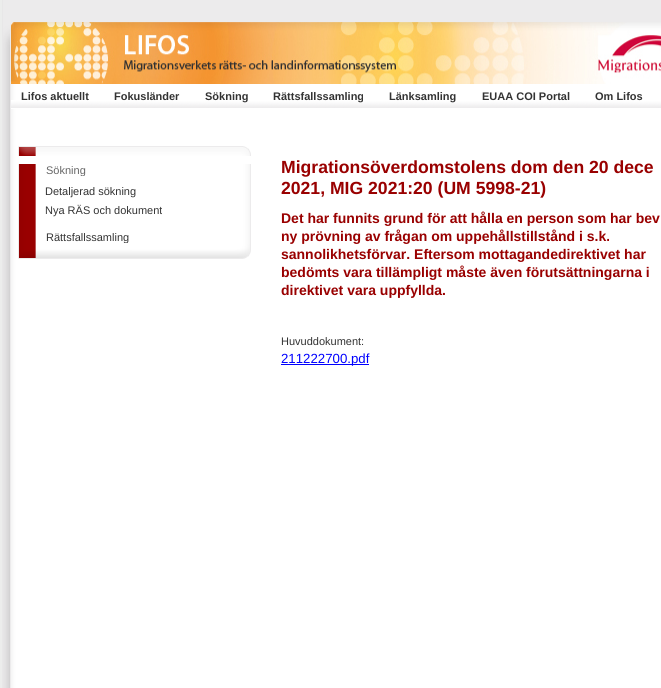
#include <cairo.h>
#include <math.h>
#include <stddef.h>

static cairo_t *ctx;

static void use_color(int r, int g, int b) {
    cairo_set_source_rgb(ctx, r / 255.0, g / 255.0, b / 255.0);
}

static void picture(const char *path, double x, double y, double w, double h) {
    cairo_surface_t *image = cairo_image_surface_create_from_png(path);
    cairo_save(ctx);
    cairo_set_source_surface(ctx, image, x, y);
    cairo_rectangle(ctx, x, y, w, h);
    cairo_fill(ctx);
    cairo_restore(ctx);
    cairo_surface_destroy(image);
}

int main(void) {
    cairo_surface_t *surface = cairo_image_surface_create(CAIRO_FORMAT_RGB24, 661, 688);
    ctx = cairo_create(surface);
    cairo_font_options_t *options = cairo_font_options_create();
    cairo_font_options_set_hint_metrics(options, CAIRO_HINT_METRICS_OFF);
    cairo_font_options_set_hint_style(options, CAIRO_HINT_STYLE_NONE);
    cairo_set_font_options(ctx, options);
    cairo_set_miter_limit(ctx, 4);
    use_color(236, 237, 236);
    cairo_paint(ctx);
    picture("img1.png", 2, 0, 659, 688);
    picture("img2.png", 3, 0, 658, 84);
    picture("img3.png", 11, 100, 650, 9);
    cairo_select_font_face(ctx, "Liberation Sans", CAIRO_FONT_SLANT_NORMAL, CAIRO_FONT_WEIGHT_BOLD);
    cairo_set_font_size(ctx, 11);
    use_color(51, 51, 51);
    cairo_move_to(ctx, 21, 100);
    cairo_show_text(ctx, "Lifos aktuellt");
    cairo_move_to(ctx, 114, 100);
    cairo_show_text(ctx, "Fokusländer");
    cairo_move_to(ctx, 205, 100);
    cairo_show_text(ctx, "Sökning");
    cairo_move_to(ctx, 273, 100);
    cairo_show_text(ctx, "Rättsfallssamling");
    cairo_move_to(ctx, 389, 100);
    cairo_show_text(ctx, "Länksamling");
    cairo_move_to(ctx, 482, 100);
    cairo_show_text(ctx, "EUAA COI Portal");
    cairo_move_to(ctx, 595, 100);
    cairo_show_text(ctx, "Om Lifos");
    picture("img4.png", 18, 146, 233, 10);
    picture("img5.png", 18, 164, 233, 17);
    cairo_select_font_face(ctx, "Liberation Sans", CAIRO_FONT_SLANT_NORMAL, CAIRO_FONT_WEIGHT_NORMAL);
    use_color(102, 102, 102);
    cairo_move_to(ctx, 46, 174);
    cairo_show_text(ctx, "Sökning");
    use_color(255, 255, 255);
    cairo_rectangle(ctx, 81, 176, 3, 1);
    cairo_fill(ctx);
    picture("img6.png", 18, 181, 233, 62);
    use_color(51, 51, 51);
    cairo_move_to(ctx, 45, 195);
    cairo_show_text(ctx, "Detaljerad sökning");
    cairo_move_to(ctx, 45, 214);
    cairo_show_text(ctx, "Nya RÄS och dokument");
    cairo_move_to(ctx, 46, 241);
    cairo_show_text(ctx, "Rättsfallssamling");
    picture("img7.png", 18, 243, 233, 16);
    cairo_select_font_face(ctx, "Liberation Sans", CAIRO_FONT_SLANT_NORMAL, CAIRO_FONT_WEIGHT_BOLD);
    cairo_set_font_size(ctx, 17.6);
    use_color(153, 0, 0);
    cairo_move_to(ctx, 281, 173);
    cairo_show_text(ctx, "Migrationsöverdomstolens dom den 20 dece");
    cairo_move_to(ctx, 281, 194);
    cairo_show_text(ctx, "2021, MIG 2021:20 (UM 5998-21)");
    cairo_set_font_size(ctx, 14);
    cairo_move_to(ctx, 281, 223);
    cairo_show_text(ctx, "Det har funnits grund för att hålla en person som har bev");
    cairo_move_to(ctx, 281, 241);
    cairo_show_text(ctx, "ny prövning av frågan om uppehållstillstånd i s.k.");
    cairo_move_to(ctx, 281, 259);
    cairo_show_text(ctx, "sannolikhetsförvar. Eftersom mottagandedirektivet har");
    cairo_move_to(ctx, 281, 277);
    cairo_show_text(ctx, "bedömts vara tillämpligt måste även förutsättningarna i");
    cairo_move_to(ctx, 281, 295);
    cairo_show_text(ctx, "direktivet vara uppfyllda.");
    cairo_select_font_face(ctx, "Liberation Sans", CAIRO_FONT_SLANT_NORMAL, CAIRO_FONT_WEIGHT_NORMAL);
    cairo_set_font_size(ctx, 11);
    use_color(51, 51, 51);
    cairo_move_to(ctx, 281, 345);
    cairo_show_text(ctx, "Huvuddokument:");
    use_color(0, 0, 255);
    cairo_rectangle(ctx, 281, 364, 88, 1);
    cairo_fill(ctx);
    cairo_set_font_size(ctx, 13.25);
    cairo_move_to(ctx, 281, 363);
    cairo_show_text(ctx, "211222700.pdf");
    cairo_surface_write_to_png(surface, "result.png");
    cairo_font_options_destroy(options);
    cairo_destroy(ctx);
    cairo_surface_destroy(surface);
    return 0;
}
